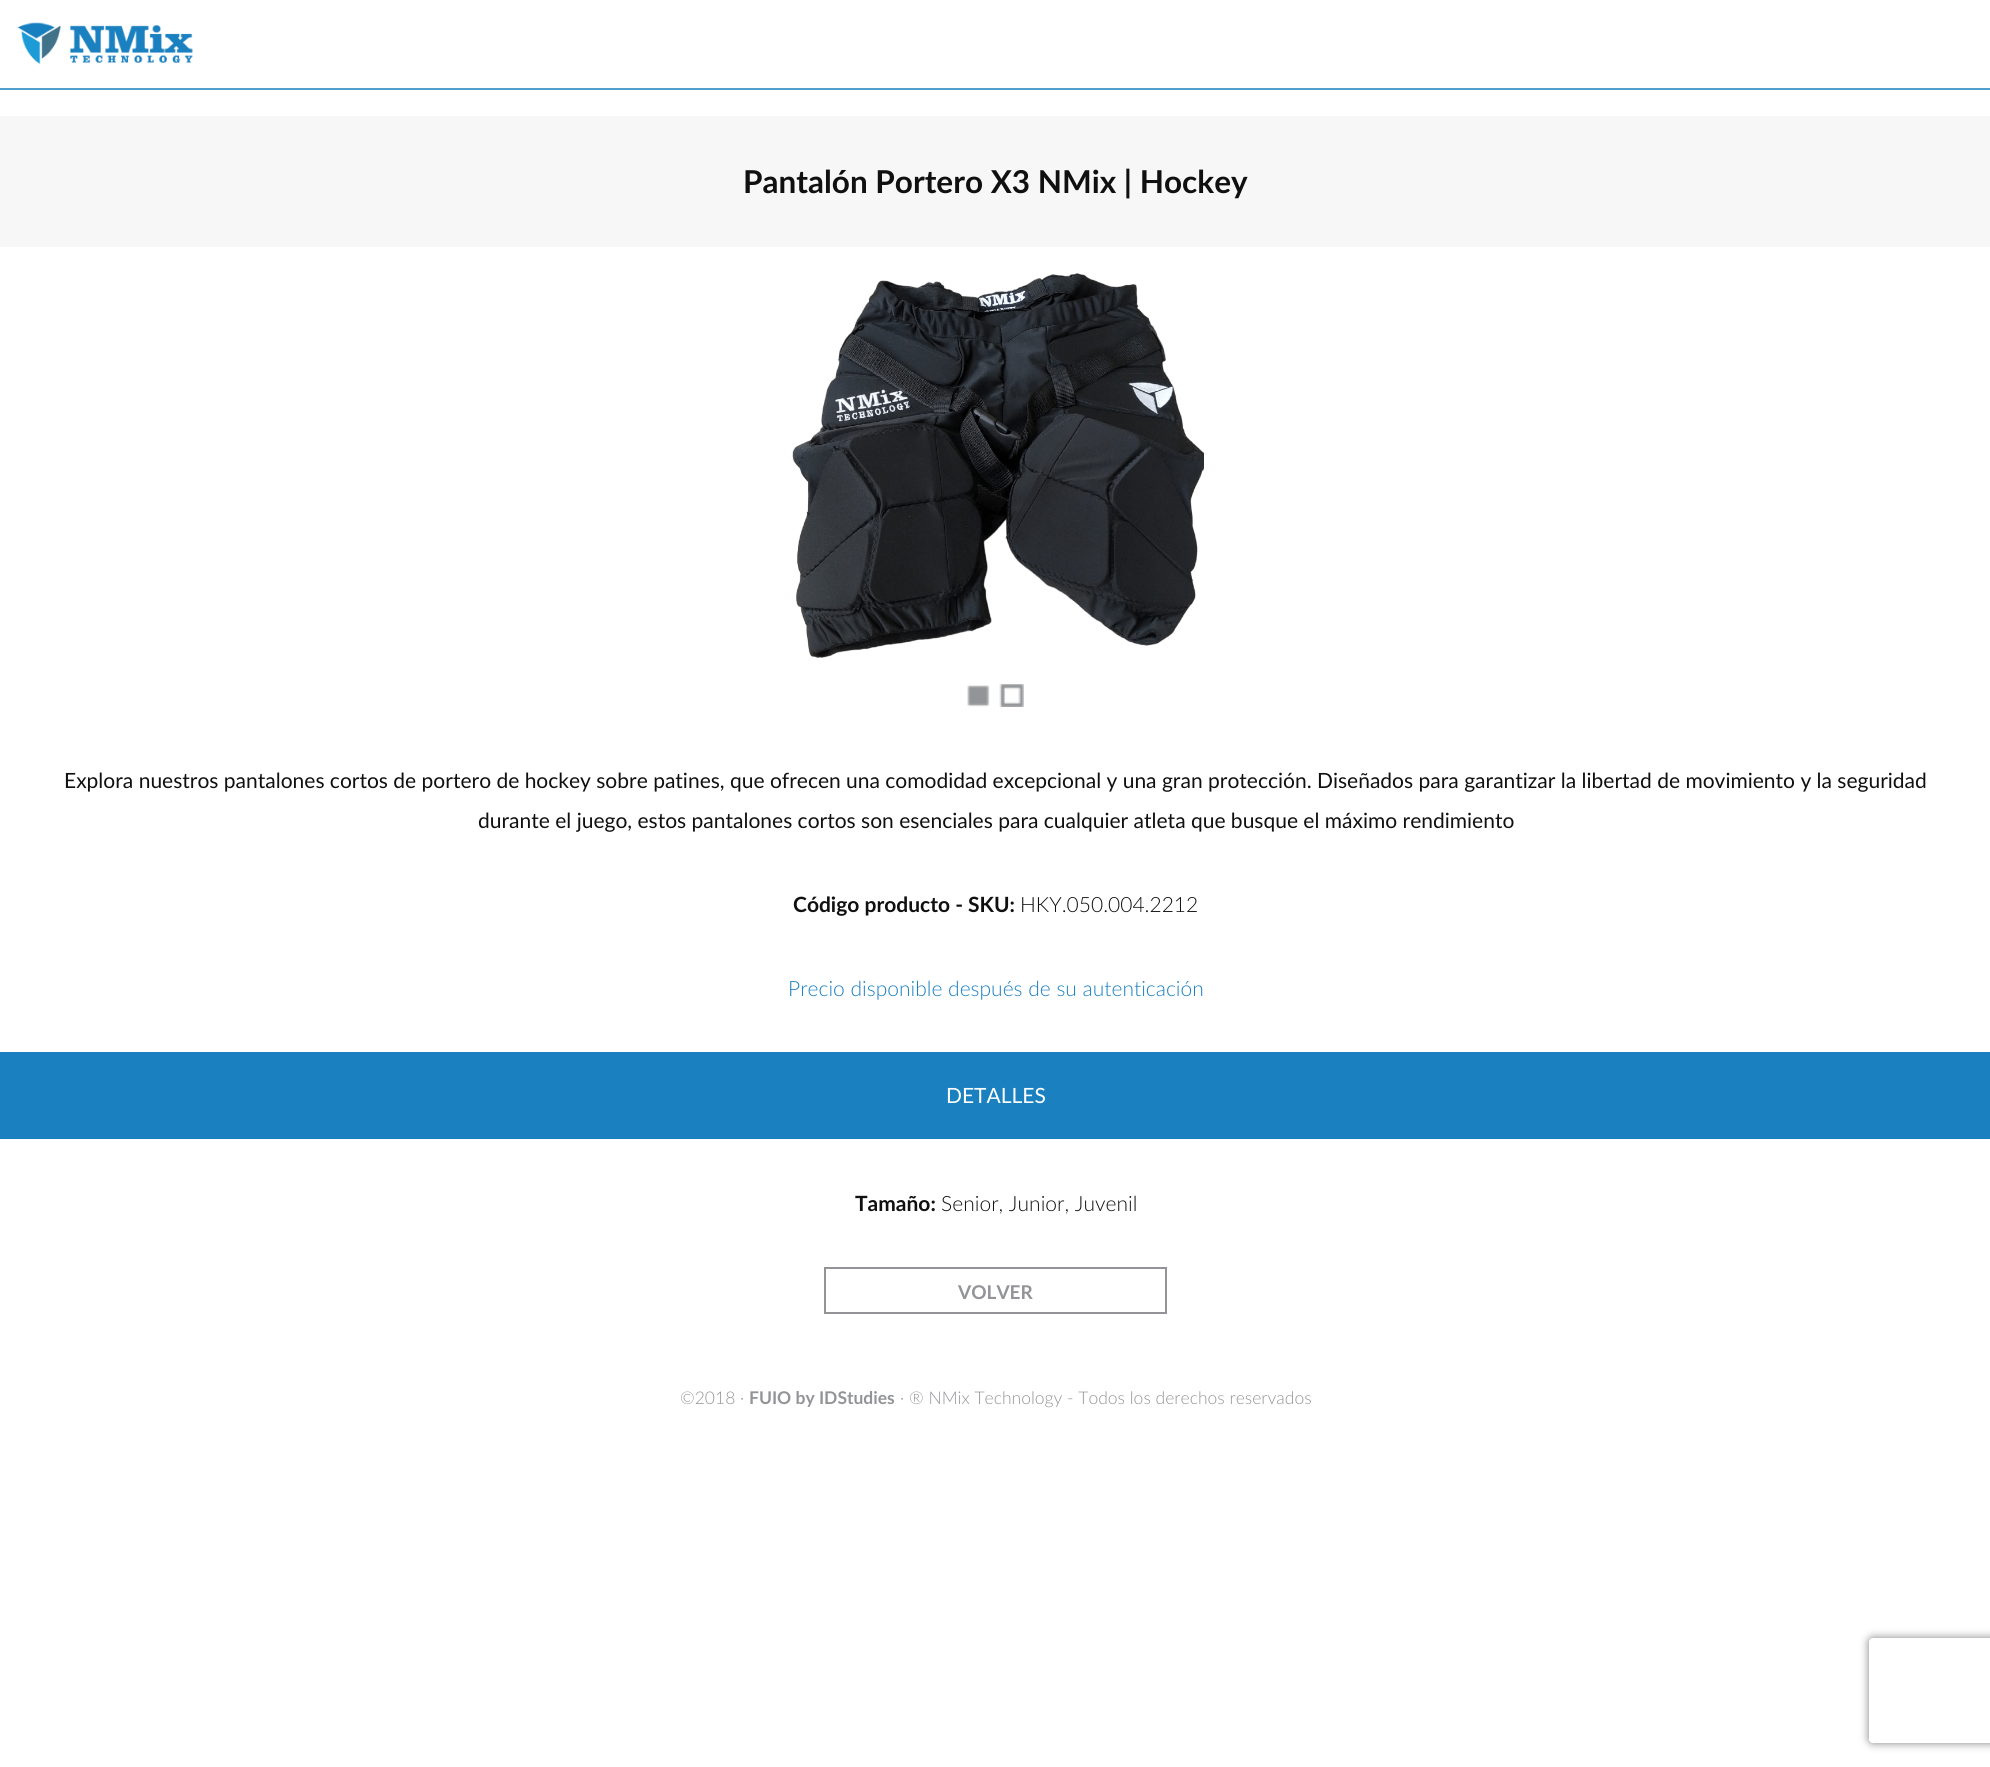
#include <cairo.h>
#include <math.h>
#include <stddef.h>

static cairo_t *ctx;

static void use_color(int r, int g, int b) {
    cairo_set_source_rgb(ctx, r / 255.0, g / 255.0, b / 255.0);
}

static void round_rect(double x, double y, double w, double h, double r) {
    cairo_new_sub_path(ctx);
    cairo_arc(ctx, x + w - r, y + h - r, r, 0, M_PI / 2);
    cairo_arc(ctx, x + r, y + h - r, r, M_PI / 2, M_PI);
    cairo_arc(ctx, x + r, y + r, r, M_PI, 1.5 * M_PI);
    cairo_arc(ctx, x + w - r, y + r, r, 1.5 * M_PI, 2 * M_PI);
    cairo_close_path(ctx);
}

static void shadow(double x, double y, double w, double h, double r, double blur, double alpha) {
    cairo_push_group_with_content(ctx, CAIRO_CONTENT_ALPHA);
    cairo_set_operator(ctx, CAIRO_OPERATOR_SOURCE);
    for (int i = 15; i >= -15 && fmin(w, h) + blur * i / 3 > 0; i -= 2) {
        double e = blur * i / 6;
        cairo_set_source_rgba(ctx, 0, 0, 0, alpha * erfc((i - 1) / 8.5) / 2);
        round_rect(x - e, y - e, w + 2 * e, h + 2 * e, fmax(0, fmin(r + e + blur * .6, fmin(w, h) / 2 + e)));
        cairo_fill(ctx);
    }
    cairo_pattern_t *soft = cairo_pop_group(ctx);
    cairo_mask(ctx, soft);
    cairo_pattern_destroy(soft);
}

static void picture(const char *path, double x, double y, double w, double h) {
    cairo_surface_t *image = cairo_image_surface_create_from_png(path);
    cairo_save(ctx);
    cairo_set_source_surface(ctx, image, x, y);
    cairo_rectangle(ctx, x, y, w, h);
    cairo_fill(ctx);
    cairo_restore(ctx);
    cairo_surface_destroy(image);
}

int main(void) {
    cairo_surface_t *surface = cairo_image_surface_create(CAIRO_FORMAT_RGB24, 1990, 1767);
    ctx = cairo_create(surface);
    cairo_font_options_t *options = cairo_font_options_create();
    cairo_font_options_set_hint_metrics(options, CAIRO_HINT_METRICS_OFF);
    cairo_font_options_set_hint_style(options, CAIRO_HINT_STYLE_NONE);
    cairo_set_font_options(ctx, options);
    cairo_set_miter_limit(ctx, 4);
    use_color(255, 255, 255);
    cairo_paint(ctx);
    use_color(81, 158, 207);
    cairo_rectangle(ctx, 0, 88, 1990, 2);
    cairo_fill(ctx);
    picture("img1.png", 17, 22, 176, 43);
    use_color(247, 247, 247);
    cairo_rectangle(ctx, 0, 116, 1990, 131);
    cairo_fill(ctx);
    cairo_select_font_face(ctx, "Lato", CAIRO_FONT_SLANT_NORMAL, CAIRO_FONT_WEIGHT_BOLD);
    cairo_set_font_size(ctx, 31.5);
    use_color(16, 16, 16);
    cairo_move_to(ctx, 743, 193);
    cairo_show_text(ctx, "Pantalón Portero X3 NMix | Hockey");
    picture("img2.png", 792, 273, 412, 385);
    picture("img3.png", 967, 685, 23, 22);
    picture("img4.png", 999, 684, 25, 23);
    cairo_select_font_face(ctx, "Lato", CAIRO_FONT_SLANT_NORMAL, CAIRO_FONT_WEIGHT_NORMAL);
    cairo_set_font_size(ctx, 21);
    cairo_move_to(ctx, 64, 788);
    cairo_show_text(ctx, "Explora nuestros pantalones cortos de portero de hockey sobre patines, que ofrecen una comodidad excepcional y una gran protección. Diseñados para garantizar la libertad de movimiento y la seguridad");
    cairo_move_to(ctx, 478, 828);
    cairo_show_text(ctx, "durante el juego, estos pantalones cortos son esenciales para cualquier atleta que busque el máximo rendimiento");
    cairo_select_font_face(ctx, "Lato", CAIRO_FONT_SLANT_NORMAL, CAIRO_FONT_WEIGHT_BOLD);
    cairo_move_to(ctx, 793, 912);
    cairo_show_text(ctx, "Código producto - SKU:");
    cairo_select_font_face(ctx, "Lato Light", CAIRO_FONT_SLANT_NORMAL, CAIRO_FONT_WEIGHT_NORMAL);
    cairo_move_to(ctx, 1020, 912);
    cairo_show_text(ctx, "HKY.050.004.2212");
    use_color(26, 128, 192);
    cairo_move_to(ctx, 788, 996);
    cairo_show_text(ctx, "Precio disponible después de su autenticación");
    cairo_rectangle(ctx, 0, 1052, 1990, 87);
    cairo_fill(ctx);
    cairo_select_font_face(ctx, "Lato", CAIRO_FONT_SLANT_NORMAL, CAIRO_FONT_WEIGHT_NORMAL);
    use_color(255, 255, 255);
    cairo_move_to(ctx, 946, 1103);
    cairo_show_text(ctx, "DETALLES");
    cairo_select_font_face(ctx, "Lato", CAIRO_FONT_SLANT_NORMAL, CAIRO_FONT_WEIGHT_BOLD);
    use_color(16, 16, 16);
    cairo_move_to(ctx, 855, 1211);
    cairo_show_text(ctx, "Tamaño:");
    cairo_select_font_face(ctx, "Lato Light", CAIRO_FONT_SLANT_NORMAL, CAIRO_FONT_WEIGHT_NORMAL);
    cairo_move_to(ctx, 941, 1211);
    cairo_show_text(ctx, "Senior, Junior, Juvenil");
    cairo_rectangle(ctx, 825, 1268, 341, 45);
    use_color(146, 148, 151);
    cairo_stroke(ctx);
    cairo_select_font_face(ctx, "Lato", CAIRO_FONT_SLANT_NORMAL, CAIRO_FONT_WEIGHT_BOLD);
    cairo_set_font_size(ctx, 19);
    cairo_move_to(ctx, 958, 1299);
    cairo_show_text(ctx, "VOLVER");
    cairo_select_font_face(ctx, "Lato Light", CAIRO_FONT_SLANT_NORMAL, CAIRO_FONT_WEIGHT_NORMAL);
    cairo_set_font_size(ctx, 17.5);
    cairo_move_to(ctx, 680, 1404);
    cairo_show_text(ctx, "©2018 ·");
    cairo_select_font_face(ctx, "Lato", CAIRO_FONT_SLANT_NORMAL, CAIRO_FONT_WEIGHT_BOLD);
    cairo_move_to(ctx, 749, 1404);
    cairo_show_text(ctx, "FUIO by IDStudies");
    cairo_select_font_face(ctx, "Lato Light", CAIRO_FONT_SLANT_NORMAL, CAIRO_FONT_WEIGHT_NORMAL);
    cairo_move_to(ctx, 900, 1404);
    cairo_show_text(ctx, "· ® NMix Technology - Todos los derechos reservados");
    cairo_save(ctx);
    cairo_set_fill_rule(ctx, CAIRO_FILL_RULE_EVEN_ODD);
    cairo_new_path(ctx);
    cairo_move_to(ctx, 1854, 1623);
    cairo_line_to(ctx, 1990, 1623);
    cairo_line_to(ctx, 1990, 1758);
    cairo_line_to(ctx, 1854, 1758);
    cairo_close_path(ctx);
    cairo_move_to(ctx, 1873, 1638);
    cairo_line_to(ctx, 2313, 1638);
    cairo_curve_to(ctx, 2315, 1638, 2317, 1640, 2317, 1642);
    cairo_line_to(ctx, 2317, 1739);
    cairo_curve_to(ctx, 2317, 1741, 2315, 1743, 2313, 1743);
    cairo_line_to(ctx, 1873, 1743);
    cairo_curve_to(ctx, 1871, 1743, 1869, 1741, 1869, 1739);
    cairo_line_to(ctx, 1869, 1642);
    cairo_curve_to(ctx, 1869, 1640, 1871, 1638, 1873, 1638);
    cairo_close_path(ctx);
    cairo_clip(ctx);
    use_color(128, 128, 128);
    shadow(1869, 1638, 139, 105, 4, 4.5, 1);
    cairo_restore(ctx);
    cairo_surface_write_to_png(surface, "result.png");
    cairo_font_options_destroy(options);
    cairo_destroy(ctx);
    cairo_surface_destroy(surface);
    return 0;
}
